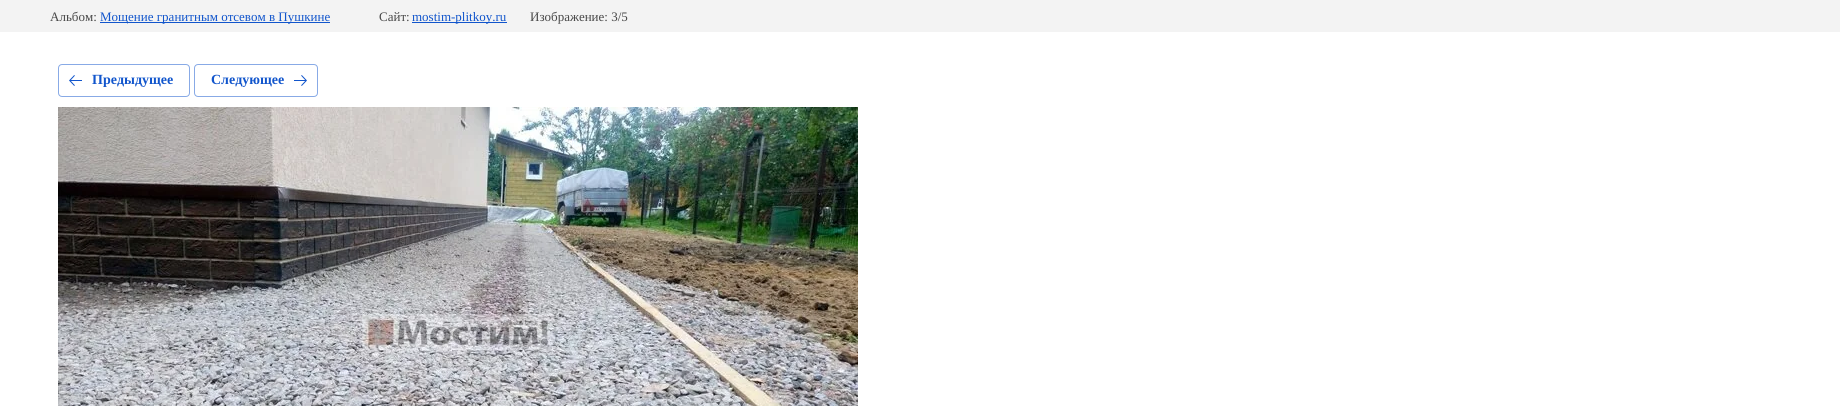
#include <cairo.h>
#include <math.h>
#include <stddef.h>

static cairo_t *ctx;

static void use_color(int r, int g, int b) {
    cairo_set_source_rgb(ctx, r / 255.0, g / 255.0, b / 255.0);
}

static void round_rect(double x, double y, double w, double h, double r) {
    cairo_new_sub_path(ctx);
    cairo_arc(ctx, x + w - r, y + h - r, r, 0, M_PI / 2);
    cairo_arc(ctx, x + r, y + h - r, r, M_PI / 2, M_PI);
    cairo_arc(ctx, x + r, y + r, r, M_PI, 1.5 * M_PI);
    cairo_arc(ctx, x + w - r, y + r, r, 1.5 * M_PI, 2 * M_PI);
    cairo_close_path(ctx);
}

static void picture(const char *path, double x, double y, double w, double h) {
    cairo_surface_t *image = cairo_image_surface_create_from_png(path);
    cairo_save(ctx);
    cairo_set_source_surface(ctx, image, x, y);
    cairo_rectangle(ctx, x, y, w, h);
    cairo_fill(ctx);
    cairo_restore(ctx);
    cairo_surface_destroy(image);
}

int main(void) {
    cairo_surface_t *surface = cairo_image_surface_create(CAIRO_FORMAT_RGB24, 1840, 406);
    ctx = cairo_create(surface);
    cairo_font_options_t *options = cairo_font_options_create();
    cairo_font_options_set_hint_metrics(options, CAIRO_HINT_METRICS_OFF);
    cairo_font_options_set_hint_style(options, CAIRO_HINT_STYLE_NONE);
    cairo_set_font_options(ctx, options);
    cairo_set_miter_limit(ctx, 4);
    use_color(255, 255, 255);
    cairo_paint(ctx);
    use_color(243, 243, 243);
    cairo_rectangle(ctx, 0, 0, 1840, 32);
    cairo_fill(ctx);
    cairo_select_font_face(ctx, "Liberation Serif", CAIRO_FONT_SLANT_NORMAL, CAIRO_FONT_WEIGHT_NORMAL);
    cairo_set_font_size(ctx, 13);
    use_color(72, 72, 72);
    cairo_move_to(ctx, 50, 21);
    cairo_show_text(ctx, "Альбом:");
    use_color(17, 85, 204);
    cairo_rectangle(ctx, 100, 22, 230, 1);
    cairo_fill(ctx);
    cairo_move_to(ctx, 100, 21);
    cairo_show_text(ctx, "Мощение гранитным отсевом в Пушкине");
    use_color(72, 72, 72);
    cairo_move_to(ctx, 379, 21);
    cairo_show_text(ctx, "Сайт:");
    use_color(17, 85, 204);
    cairo_rectangle(ctx, 412, 22, 95, 1);
    cairo_fill(ctx);
    cairo_move_to(ctx, 412, 21);
    cairo_show_text(ctx, "mostim-plitkoy.ru");
    use_color(72, 72, 72);
    cairo_move_to(ctx, 530, 21);
    cairo_show_text(ctx, "Изображение: 3/5");
    round_rect(58.5, 64.5, 131, 32, 3.5);
    use_color(136, 170, 230);
    cairo_set_line_width(ctx, 1);
    cairo_stroke(ctx);
    picture("img1.png", 69, 75, 13, 11);
    cairo_select_font_face(ctx, "Liberation Serif", CAIRO_FONT_SLANT_NORMAL, CAIRO_FONT_WEIGHT_BOLD);
    cairo_set_font_size(ctx, 14);
    use_color(17, 85, 204);
    cairo_move_to(ctx, 92, 84);
    cairo_show_text(ctx, "Предыдущее");
    round_rect(194.5, 64.5, 123, 32, 3.5);
    use_color(136, 170, 230);
    cairo_stroke(ctx);
    use_color(17, 85, 204);
    cairo_move_to(ctx, 211, 84);
    cairo_show_text(ctx, "Следующее");
    picture("img2.png", 294, 75, 13, 11);
    picture("img3.png", 58, 107, 800, 299);
    cairo_surface_write_to_png(surface, "result.png");
    cairo_font_options_destroy(options);
    cairo_destroy(ctx);
    cairo_surface_destroy(surface);
    return 0;
}
